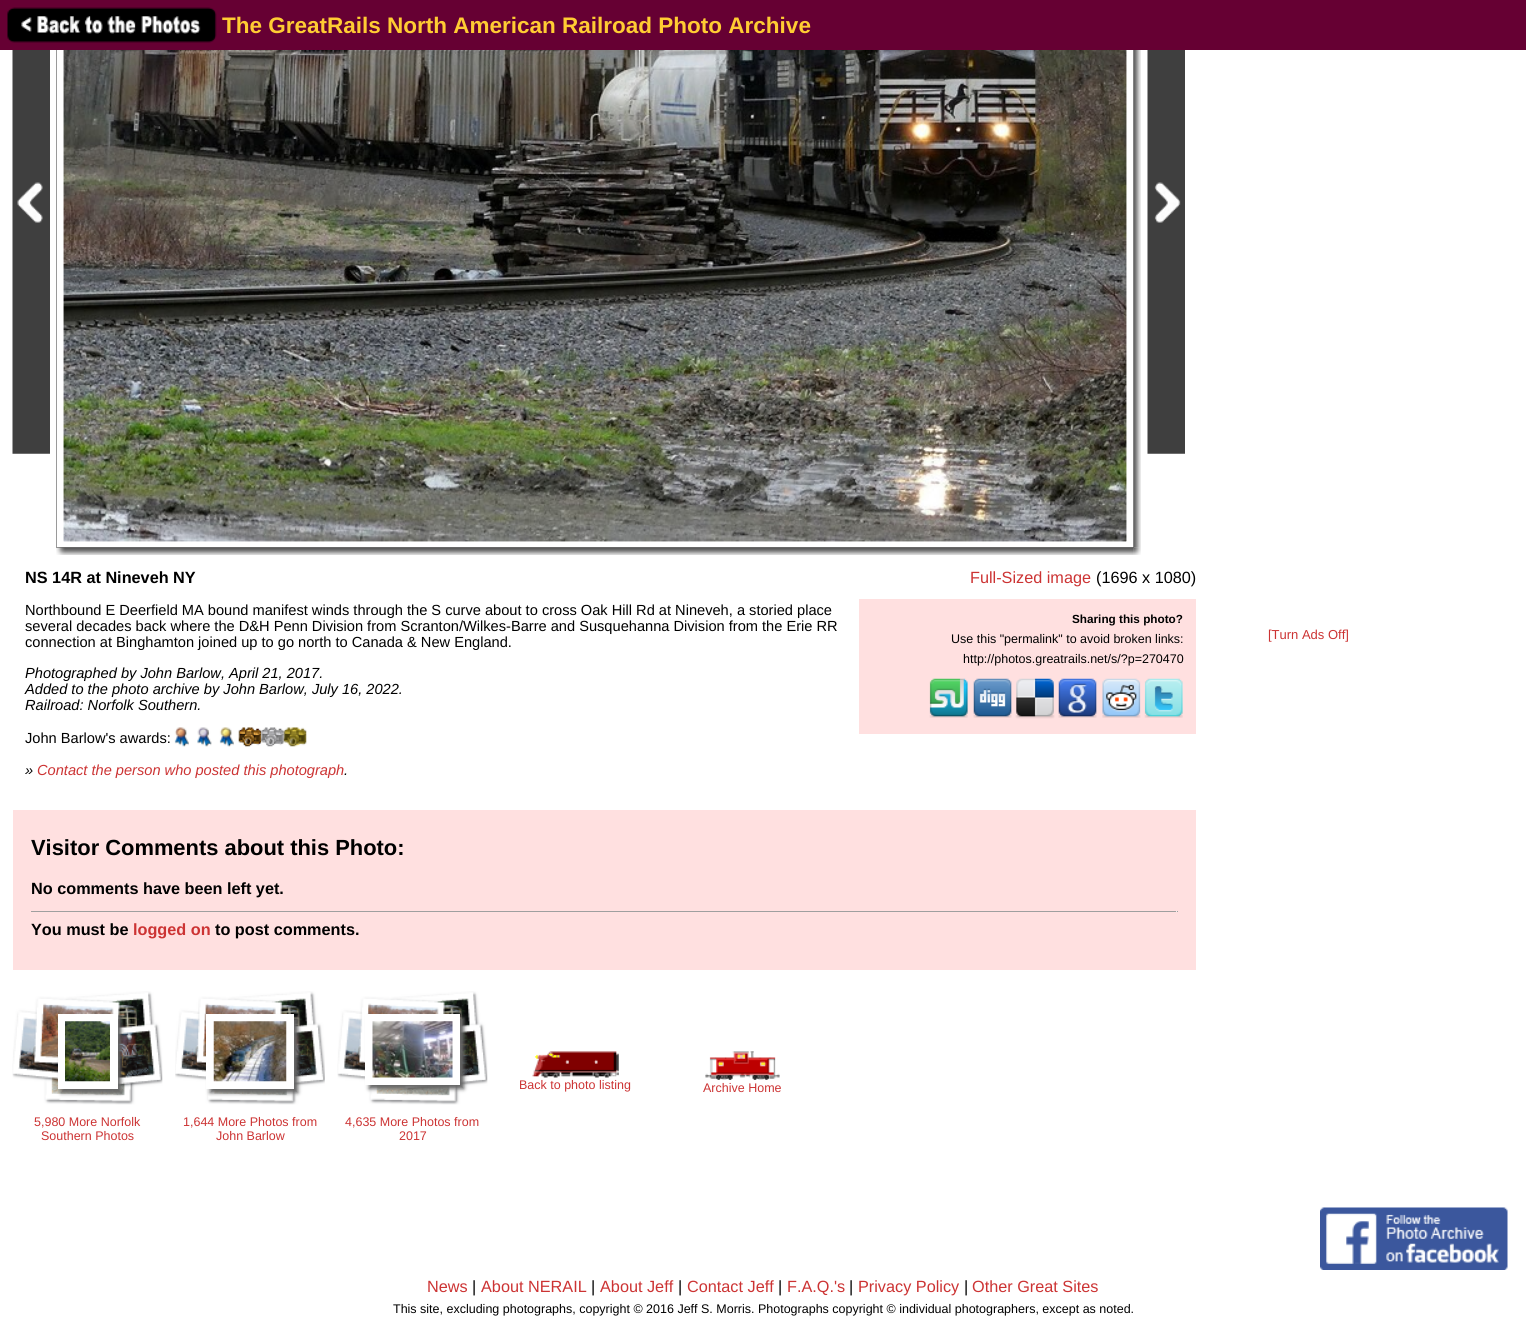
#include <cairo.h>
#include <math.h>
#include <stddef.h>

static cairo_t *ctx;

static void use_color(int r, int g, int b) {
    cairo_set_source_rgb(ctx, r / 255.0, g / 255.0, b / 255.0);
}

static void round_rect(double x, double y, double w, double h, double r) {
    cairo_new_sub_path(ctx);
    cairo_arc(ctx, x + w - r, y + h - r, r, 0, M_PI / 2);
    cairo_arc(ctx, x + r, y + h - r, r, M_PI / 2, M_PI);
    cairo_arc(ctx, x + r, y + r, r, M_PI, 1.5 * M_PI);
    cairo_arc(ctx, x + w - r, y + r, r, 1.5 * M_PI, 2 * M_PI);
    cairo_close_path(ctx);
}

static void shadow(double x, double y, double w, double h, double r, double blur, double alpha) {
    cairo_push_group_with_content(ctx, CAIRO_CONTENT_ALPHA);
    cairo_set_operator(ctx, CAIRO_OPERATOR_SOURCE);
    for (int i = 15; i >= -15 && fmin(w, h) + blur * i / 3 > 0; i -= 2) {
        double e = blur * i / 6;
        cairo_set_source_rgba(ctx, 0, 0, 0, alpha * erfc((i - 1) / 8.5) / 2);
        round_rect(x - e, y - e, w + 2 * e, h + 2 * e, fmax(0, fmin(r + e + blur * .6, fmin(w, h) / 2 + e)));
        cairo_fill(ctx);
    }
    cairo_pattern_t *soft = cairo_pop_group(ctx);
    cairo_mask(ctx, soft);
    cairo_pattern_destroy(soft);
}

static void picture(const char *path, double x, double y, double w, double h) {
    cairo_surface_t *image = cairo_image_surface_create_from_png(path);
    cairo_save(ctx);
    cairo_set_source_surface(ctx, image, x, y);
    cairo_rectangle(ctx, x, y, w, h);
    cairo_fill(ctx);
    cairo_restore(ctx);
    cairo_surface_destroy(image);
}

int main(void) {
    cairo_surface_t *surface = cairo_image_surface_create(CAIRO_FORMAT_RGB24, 1526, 1321);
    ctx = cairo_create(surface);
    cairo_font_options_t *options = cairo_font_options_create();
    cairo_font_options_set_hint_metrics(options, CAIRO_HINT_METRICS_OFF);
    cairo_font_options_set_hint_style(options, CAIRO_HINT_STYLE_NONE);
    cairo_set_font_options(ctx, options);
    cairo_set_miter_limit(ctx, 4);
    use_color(255, 255, 255);
    cairo_paint(ctx);
    cairo_rectangle(ctx, 56.5, -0.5, 1077, 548);
    use_color(154, 154, 154);
    cairo_set_line_width(ctx, 1);
    cairo_stroke(ctx);
    use_color(102, 0, 51);
    cairo_rectangle(ctx, 0, 0, 1526, 50);
    cairo_fill(ctx);
    picture("img1.png", 7, 7, 210, 36);
    cairo_select_font_face(ctx, "Liberation Sans", CAIRO_FONT_SLANT_NORMAL, CAIRO_FONT_WEIGHT_BOLD);
    cairo_set_font_size(ctx, 22.5);
    use_color(255, 204, 51);
    cairo_move_to(ctx, 222, 33);
    cairo_show_text(ctx, "The GreatRails North American Railroad Photo Archive");
    picture("img2.png", 12, 50, 38, 404);
    picture("img3.png", 63, 50, 1064, 492);
    picture("img4.png", 63, 50, 1064, 492);
    picture("img5.png", 1133, 50, 8, 498);
    picture("img6.png", 1147, 50, 38, 404);
    picture("img7.png", 56, 547, 1078, 8);
    picture("img8.png", 1133, 547, 8, 8);
    cairo_set_font_size(ctx, 16.25);
    use_color(0, 0, 0);
    cairo_move_to(ctx, 25, 583);
    cairo_show_text(ctx, "NS 14R at Nineveh NY");
    cairo_select_font_face(ctx, "Liberation Sans", CAIRO_FONT_SLANT_NORMAL, CAIRO_FONT_WEIGHT_NORMAL);
    cairo_set_font_size(ctx, 14.62);
    cairo_move_to(ctx, 25, 615);
    cairo_show_text(ctx, "Northbound E Deerfield MA bound manifest winds through the S curve about to cross Oak Hill Rd at Nineveh, a storied place");
    cairo_move_to(ctx, 25, 631);
    cairo_show_text(ctx, "several decades back where the D&H Penn Division from Scranton/Wilkes-Barre and Susquehanna Division from the Erie RR");
    cairo_move_to(ctx, 25, 647);
    cairo_show_text(ctx, "connection at Binghamton joined up to go north to Canada & New England.");
    cairo_select_font_face(ctx, "Liberation Sans", CAIRO_FONT_SLANT_ITALIC, CAIRO_FONT_WEIGHT_NORMAL);
    cairo_move_to(ctx, 25, 678);
    cairo_show_text(ctx, "Photographed by John Barlow, April 21, 2017.");
    cairo_move_to(ctx, 25, 694);
    cairo_show_text(ctx, "Added to the photo archive by John Barlow, July 16, 2022.");
    cairo_move_to(ctx, 25, 710);
    cairo_show_text(ctx, "Railroad: Norfolk Southern.");
    cairo_select_font_face(ctx, "Liberation Sans", CAIRO_FONT_SLANT_NORMAL, CAIRO_FONT_WEIGHT_NORMAL);
    cairo_move_to(ctx, 25, 743);
    cairo_show_text(ctx, "John Barlow's awards:");
    picture("img9.png", 174, 727, 15, 20);
    picture("img10.png", 197, 727, 15, 20);
    picture("img11.png", 219, 727, 15, 20);
    picture("img12.png", 238, 727, 24, 20);
    picture("img13.png", 261, 727, 23, 20);
    picture("img14.png", 283, 727, 24, 20);
    cairo_select_font_face(ctx, "Liberation Sans", CAIRO_FONT_SLANT_ITALIC, CAIRO_FONT_WEIGHT_NORMAL);
    cairo_move_to(ctx, 25, 775);
    cairo_show_text(ctx, "»");
    use_color(204, 51, 51);
    cairo_move_to(ctx, 37, 775);
    cairo_show_text(ctx, "Contact the person who posted this photograph");
    use_color(0, 0, 0);
    cairo_move_to(ctx, 344, 775);
    cairo_show_text(ctx, ".");
    cairo_select_font_face(ctx, "Liberation Sans", CAIRO_FONT_SLANT_NORMAL, CAIRO_FONT_WEIGHT_NORMAL);
    cairo_set_font_size(ctx, 16.25);
    use_color(204, 51, 51);
    cairo_move_to(ctx, 970, 583);
    cairo_show_text(ctx, "Full-Sized image");
    use_color(0, 0, 0);
    cairo_move_to(ctx, 1096, 583);
    cairo_show_text(ctx, "(1696 x 1080)");
    use_color(255, 224, 224);
    cairo_rectangle(ctx, 859, 599, 337, 135);
    cairo_fill(ctx);
    cairo_select_font_face(ctx, "Liberation Sans", CAIRO_FONT_SLANT_NORMAL, CAIRO_FONT_WEIGHT_BOLD);
    cairo_set_font_size(ctx, 11.75);
    use_color(0, 0, 0);
    cairo_move_to(ctx, 1072, 623);
    cairo_show_text(ctx, "Sharing this photo?");
    cairo_select_font_face(ctx, "Liberation Sans", CAIRO_FONT_SLANT_NORMAL, CAIRO_FONT_WEIGHT_NORMAL);
    cairo_set_font_size(ctx, 12.5);
    cairo_move_to(ctx, 951, 643);
    cairo_show_text(ctx, "Use this \"permalink\" to avoid broken links:");
    cairo_move_to(ctx, 963, 663);
    cairo_show_text(ctx, "http://photos.greatrails.net/s/?p=270470");
    picture("img15.png", 929, 678, 39, 40);
    picture("img16.png", 973, 678, 39, 40);
    picture("img17.png", 1015, 678, 40, 41);
    picture("img18.png", 1058, 678, 39, 40);
    picture("img19.png", 1102, 678, 39, 40);
    picture("img20.png", 1144, 678, 39, 40);
    cairo_set_font_size(ctx, 13);
    use_color(204, 51, 51);
    cairo_move_to(ctx, 1268, 639);
    cairo_show_text(ctx, "[Turn Ads Off]");
    use_color(255, 224, 224);
    cairo_rectangle(ctx, 13, 810, 1183, 160);
    cairo_fill(ctx);
    cairo_select_font_face(ctx, "Liberation Sans", CAIRO_FONT_SLANT_NORMAL, CAIRO_FONT_WEIGHT_BOLD);
    cairo_set_font_size(ctx, 21.9);
    use_color(0, 0, 0);
    cairo_move_to(ctx, 31, 855);
    cairo_show_text(ctx, "Visitor Comments about this Photo:");
    cairo_set_font_size(ctx, 16.25);
    cairo_move_to(ctx, 31, 894);
    cairo_show_text(ctx, "No comments have been left yet.");
    use_color(159, 159, 159);
    cairo_rectangle(ctx, 31, 911, 1147, 1);
    cairo_fill(ctx);
    use_color(238, 238, 238);
    cairo_rectangle(ctx, 1176, 911, 1, 1);
    cairo_fill(ctx);
    use_color(0, 0, 0);
    cairo_move_to(ctx, 31, 935);
    cairo_show_text(ctx, "You must be");
    use_color(204, 51, 51);
    cairo_move_to(ctx, 133, 935);
    cairo_show_text(ctx, "logged on");
    use_color(0, 0, 0);
    cairo_move_to(ctx, 215, 935);
    cairo_show_text(ctx, "to post comments.");
    picture("img21.png", 532, 1051, 87, 27);
    cairo_select_font_face(ctx, "Liberation Sans", CAIRO_FONT_SLANT_NORMAL, CAIRO_FONT_WEIGHT_NORMAL);
    cairo_set_font_size(ctx, 12.5);
    use_color(204, 51, 51);
    cairo_move_to(ctx, 519, 1089);
    cairo_show_text(ctx, "Back to photo listing");
    picture("img22.png", 705, 1051, 75, 29);
    cairo_move_to(ctx, 703, 1092);
    cairo_show_text(ctx, "Archive Home");
    picture("img23.png", 12, 991, 151, 114);
    use_color(102, 102, 102);
    shadow(61, 1018, 60, 75, 0, 2, 1);
    use_color(255, 255, 255);
    cairo_rectangle(ctx, 58, 1014, 60, 75);
    cairo_fill(ctx);
    picture("img24.png", 65, 1021, 45, 61);
    use_color(204, 51, 51);
    cairo_move_to(ctx, 34, 1126);
    cairo_show_text(ctx, "5,980 More Norfolk");
    cairo_move_to(ctx, 41, 1140);
    cairo_show_text(ctx, "Southern Photos");
    picture("img25.png", 175, 991, 150, 114);
    use_color(102, 102, 102);
    shadow(210, 1018, 88, 75, 0, 2, 1);
    use_color(255, 255, 255);
    cairo_rectangle(ctx, 206, 1014, 88, 75);
    cairo_fill(ctx);
    picture("img26.png", 213, 1021, 74, 61);
    use_color(204, 51, 51);
    cairo_move_to(ctx, 183, 1126);
    cairo_show_text(ctx, "1,644 More Photos from");
    cairo_move_to(ctx, 216, 1140);
    cairo_show_text(ctx, "John Barlow");
    picture("img27.png", 337, 991, 151, 114);
    use_color(102, 102, 102);
    shadow(369, 1018, 95, 71, 0, 2, 1);
    use_color(255, 255, 255);
    cairo_rectangle(ctx, 365, 1014, 95, 71);
    cairo_fill(ctx);
    picture("img28.png", 372, 1021, 81, 57);
    use_color(204, 51, 51);
    cairo_move_to(ctx, 345, 1126);
    cairo_show_text(ctx, "4,635 More Photos from");
    cairo_move_to(ctx, 399, 1140);
    cairo_show_text(ctx, "2017");
    picture("img29.png", 1320, 1207, 188, 63);
    cairo_set_font_size(ctx, 16.25);
    cairo_move_to(ctx, 427, 1292);
    cairo_show_text(ctx, "News");
    use_color(0, 0, 0);
    cairo_move_to(ctx, 472, 1292);
    cairo_show_text(ctx, "|");
    use_color(204, 51, 51);
    cairo_move_to(ctx, 481, 1292);
    cairo_show_text(ctx, "About NERAIL");
    use_color(0, 0, 0);
    cairo_move_to(ctx, 591, 1292);
    cairo_show_text(ctx, "|");
    use_color(204, 51, 51);
    cairo_move_to(ctx, 600, 1292);
    cairo_show_text(ctx, "About Jeff");
    use_color(0, 0, 0);
    cairo_move_to(ctx, 678, 1292);
    cairo_show_text(ctx, "|");
    use_color(204, 51, 51);
    cairo_move_to(ctx, 687, 1292);
    cairo_show_text(ctx, "Contact Jeff");
    use_color(0, 0, 0);
    cairo_move_to(ctx, 778, 1292);
    cairo_show_text(ctx, "|");
    use_color(204, 51, 51);
    cairo_move_to(ctx, 787, 1292);
    cairo_show_text(ctx, "F.A.Q.'s");
    use_color(0, 0, 0);
    cairo_move_to(ctx, 849, 1292);
    cairo_show_text(ctx, "|");
    use_color(204, 51, 51);
    cairo_move_to(ctx, 858, 1292);
    cairo_show_text(ctx, "Privacy Policy");
    use_color(0, 0, 0);
    cairo_move_to(ctx, 964, 1292);
    cairo_show_text(ctx, "|");
    use_color(204, 51, 51);
    cairo_move_to(ctx, 972, 1292);
    cairo_show_text(ctx, "Other Great Sites");
    cairo_set_font_size(ctx, 12.5);
    use_color(0, 0, 0);
    cairo_move_to(ctx, 393, 1313);
    cairo_show_text(ctx, "This site, excluding photographs, copyright © 2016 Jeff S. Morris. Photographs copyright © individual photographers, except as noted.");
    cairo_surface_write_to_png(surface, "result.png");
    cairo_font_options_destroy(options);
    cairo_destroy(ctx);
    cairo_surface_destroy(surface);
    return 0;
}
